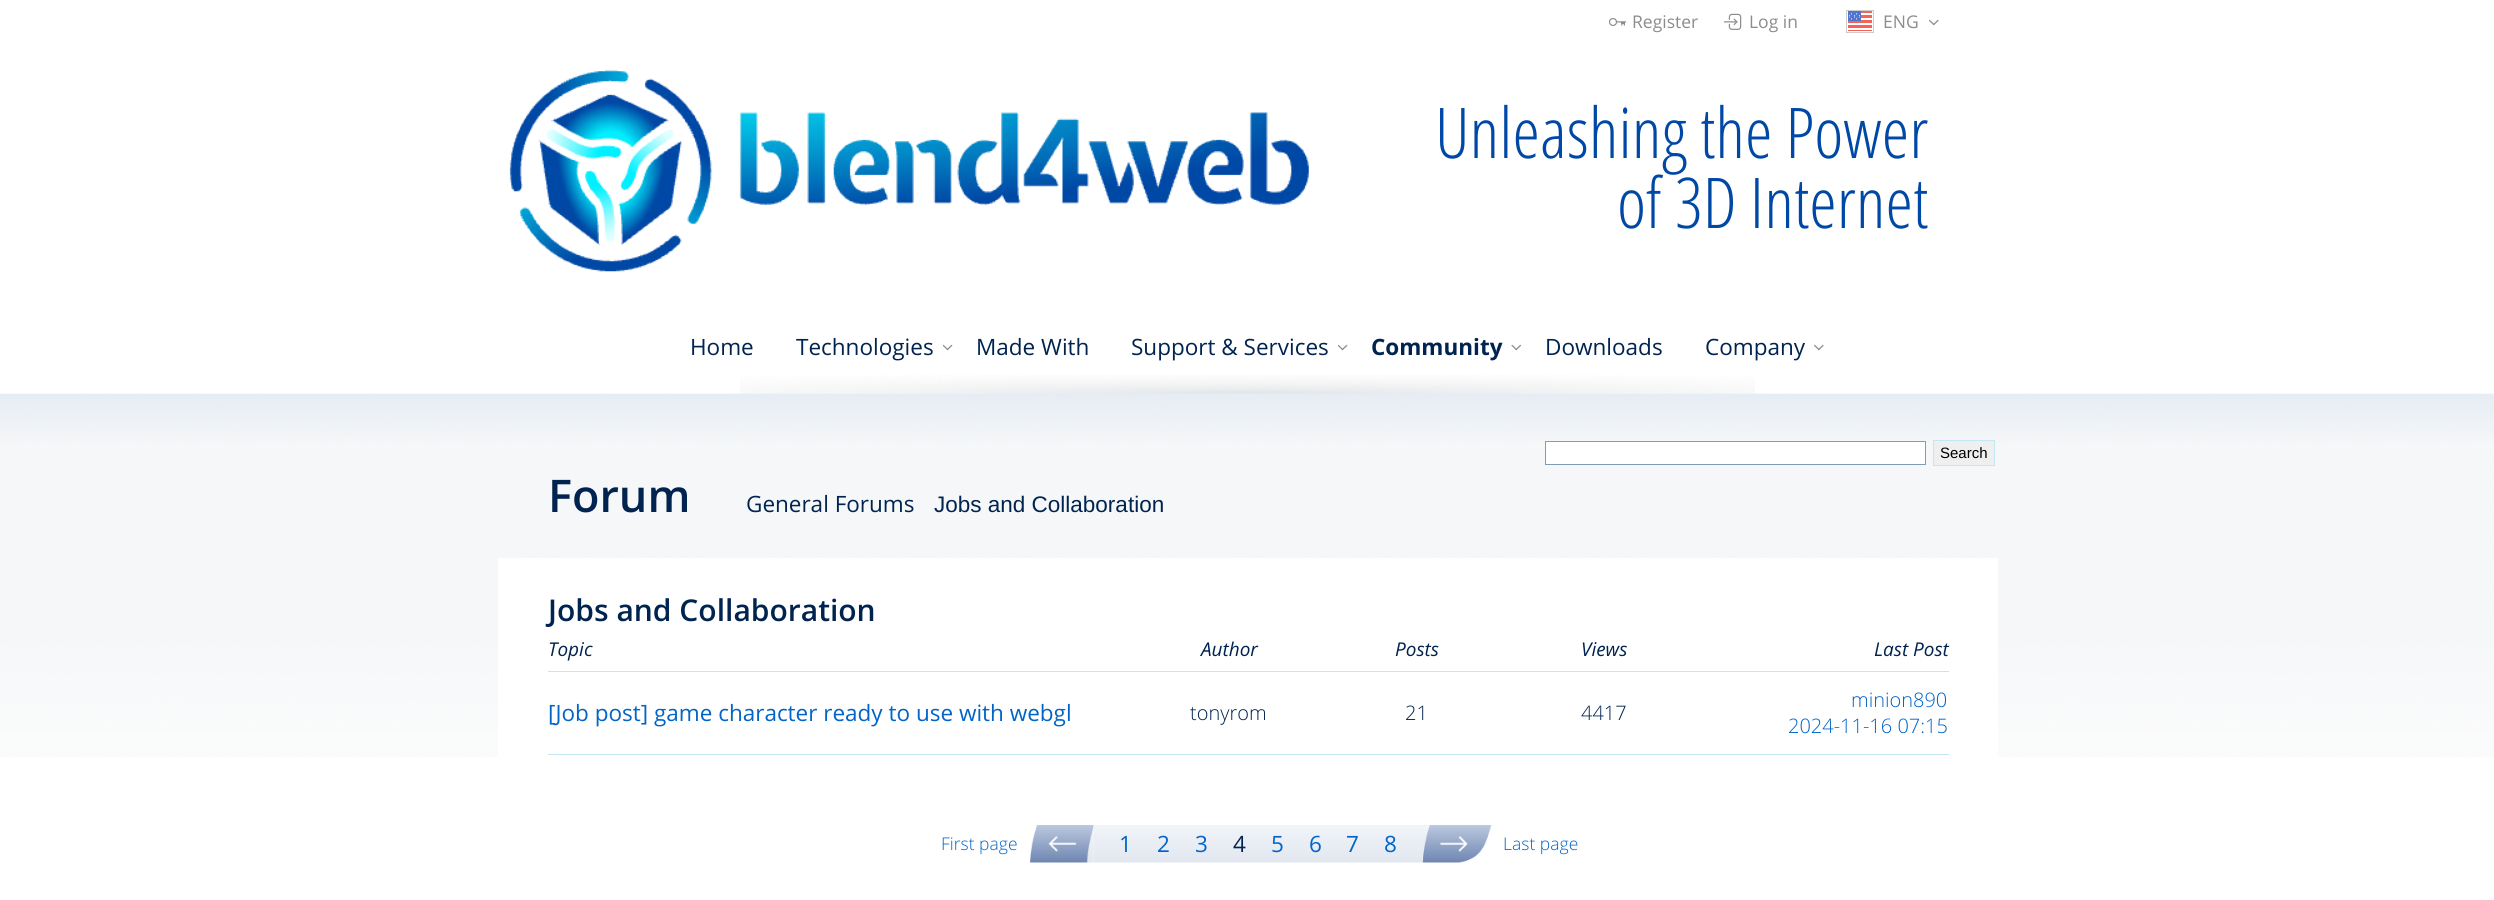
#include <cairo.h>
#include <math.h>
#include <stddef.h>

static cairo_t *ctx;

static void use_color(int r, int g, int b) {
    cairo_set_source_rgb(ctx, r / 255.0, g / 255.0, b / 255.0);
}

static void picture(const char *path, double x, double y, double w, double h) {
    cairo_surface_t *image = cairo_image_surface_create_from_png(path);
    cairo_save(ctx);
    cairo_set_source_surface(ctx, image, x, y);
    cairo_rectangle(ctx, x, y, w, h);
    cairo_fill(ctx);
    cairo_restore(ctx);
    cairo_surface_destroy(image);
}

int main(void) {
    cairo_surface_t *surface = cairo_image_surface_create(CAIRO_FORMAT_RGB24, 2494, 900);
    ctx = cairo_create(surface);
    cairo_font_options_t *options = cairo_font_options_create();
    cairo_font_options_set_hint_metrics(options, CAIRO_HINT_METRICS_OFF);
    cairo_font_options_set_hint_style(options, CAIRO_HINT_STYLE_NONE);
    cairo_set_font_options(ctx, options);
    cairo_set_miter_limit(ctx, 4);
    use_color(255, 255, 255);
    cairo_paint(ctx);
    picture("img1.png", 1609, 18, 18, 8);
    cairo_select_font_face(ctx, "Open Sans", CAIRO_FONT_SLANT_NORMAL, CAIRO_FONT_WEIGHT_NORMAL);
    cairo_set_font_size(ctx, 17.5);
    use_color(140, 140, 140);
    cairo_move_to(ctx, 1632, 28);
    cairo_show_text(ctx, "Register");
    picture("img2.png", 1724, 13, 18, 17);
    cairo_move_to(ctx, 1749, 28);
    cairo_show_text(ctx, "Log in");
    picture("img3.png", 1848, 11, 24, 20);
    cairo_rectangle(ctx, 1846.5, 10.5, 27, 22);
    use_color(204, 204, 204);
    cairo_set_line_width(ctx, 1);
    cairo_stroke(ctx);
    use_color(140, 140, 140);
    cairo_move_to(ctx, 1883, 28);
    cairo_show_text(ctx, "ENG");
    picture("img4.png", 1929, 19, 10, 7);
    picture("img5.png", 509, 69, 800, 203);
    cairo_select_font_face(ctx, "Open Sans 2 Light", CAIRO_FONT_SLANT_NORMAL, CAIRO_FONT_WEIGHT_NORMAL);
    cairo_set_font_size(ctx, 70);
    use_color(0, 72, 165);
    cairo_move_to(ctx, 1435, 158);
    cairo_show_text(ctx, "Unleashing the Power");
    cairo_move_to(ctx, 1617, 228);
    cairo_show_text(ctx, "of 3D Internet");
    picture("img9.png", 0, 393, 2494, 364);
    picture("img6.png", 740, 375, 1015, 19);
    cairo_select_font_face(ctx, "Open Sans", CAIRO_FONT_SLANT_NORMAL, CAIRO_FONT_WEIGHT_NORMAL);
    cairo_set_font_size(ctx, 22.5);
    use_color(0, 35, 80);
    cairo_move_to(ctx, 690, 355);
    cairo_show_text(ctx, "Home");
    cairo_move_to(ctx, 796, 355);
    cairo_show_text(ctx, "Technologies");
    picture("img7.png", 943, 344, 10, 7);
    cairo_move_to(ctx, 976, 355);
    cairo_show_text(ctx, "Made With");
    cairo_move_to(ctx, 1131, 355);
    cairo_show_text(ctx, "Support & Services");
    picture("img7.png", 1338, 344, 10, 7);
    cairo_select_font_face(ctx, "Open Sans", CAIRO_FONT_SLANT_NORMAL, CAIRO_FONT_WEIGHT_BOLD);
    cairo_move_to(ctx, 1371, 355);
    cairo_show_text(ctx, "Community");
    picture("img8.png", 1511, 344, 10, 7);
    cairo_select_font_face(ctx, "Open Sans", CAIRO_FONT_SLANT_NORMAL, CAIRO_FONT_WEIGHT_NORMAL);
    cairo_move_to(ctx, 1545, 355);
    cairo_show_text(ctx, "Downloads");
    cairo_move_to(ctx, 1705, 355);
    cairo_show_text(ctx, "Company");
    picture("img4.png", 1814, 344, 10, 7);
    use_color(255, 255, 255);
    cairo_rectangle(ctx, 1545.5, 441.5, 380, 23);
    cairo_fill_preserve(ctx);
    use_color(127, 157, 185);
    cairo_stroke(ctx);
    use_color(239, 239, 239);
    cairo_rectangle(ctx, 1933.5, 440.5, 61, 25);
    cairo_fill_preserve(ctx);
    use_color(196, 231, 245);
    cairo_stroke(ctx);
    cairo_select_font_face(ctx, "Liberation Sans", CAIRO_FONT_SLANT_NORMAL, CAIRO_FONT_WEIGHT_NORMAL);
    cairo_set_font_size(ctx, 15);
    use_color(0, 0, 0);
    cairo_move_to(ctx, 1940, 458);
    cairo_show_text(ctx, "Search");
    cairo_select_font_face(ctx, "Open Sans SemiBold", CAIRO_FONT_SLANT_NORMAL, CAIRO_FONT_WEIGHT_NORMAL);
    cairo_set_font_size(ctx, 45);
    use_color(0, 35, 80);
    cairo_move_to(ctx, 548, 512);
    cairo_show_text(ctx, "Forum");
    cairo_select_font_face(ctx, "Open Sans", CAIRO_FONT_SLANT_NORMAL, CAIRO_FONT_WEIGHT_NORMAL);
    cairo_set_font_size(ctx, 22.5);
    cairo_move_to(ctx, 746, 512);
    cairo_show_text(ctx, "General Forums");
    cairo_select_font_face(ctx, "Arimo", CAIRO_FONT_SLANT_NORMAL, CAIRO_FONT_WEIGHT_NORMAL);
    cairo_move_to(ctx, 934, 512);
    cairo_show_text(ctx, "Jobs and Collaboration");
    use_color(255, 255, 255);
    cairo_rectangle(ctx, 498, 558, 1500, 199);
    cairo_fill(ctx);
    cairo_select_font_face(ctx, "Open Sans SemiBold", CAIRO_FONT_SLANT_NORMAL, CAIRO_FONT_WEIGHT_NORMAL);
    cairo_set_font_size(ctx, 30);
    use_color(0, 35, 80);
    cairo_move_to(ctx, 548, 621);
    cairo_show_text(ctx, "Jobs and Collaboration");
    use_color(196, 231, 245);
    cairo_rectangle(ctx, 548, 671, 1401, 1);
    cairo_fill(ctx);
    cairo_select_font_face(ctx, "Open Sans", CAIRO_FONT_SLANT_ITALIC, CAIRO_FONT_WEIGHT_NORMAL);
    cairo_set_font_size(ctx, 19);
    use_color(0, 35, 80);
    cairo_move_to(ctx, 548, 656);
    cairo_show_text(ctx, "Topic");
    cairo_move_to(ctx, 1201, 656);
    cairo_show_text(ctx, "Author");
    cairo_move_to(ctx, 1395, 656);
    cairo_show_text(ctx, "Posts");
    cairo_move_to(ctx, 1581, 656);
    cairo_show_text(ctx, "Views");
    cairo_move_to(ctx, 1874, 656);
    cairo_show_text(ctx, "Last Post");
    use_color(196, 231, 245);
    cairo_rectangle(ctx, 548, 754, 1401, 1);
    cairo_fill(ctx);
    cairo_select_font_face(ctx, "Open Sans", CAIRO_FONT_SLANT_NORMAL, CAIRO_FONT_WEIGHT_NORMAL);
    cairo_set_font_size(ctx, 22.5);
    use_color(0, 100, 200);
    cairo_move_to(ctx, 548, 721);
    cairo_show_text(ctx, "[Job post] game character ready to use with webgl");
    cairo_select_font_face(ctx, "Open Sans Light", CAIRO_FONT_SLANT_NORMAL, CAIRO_FONT_WEIGHT_NORMAL);
    cairo_set_font_size(ctx, 20);
    use_color(0, 35, 80);
    cairo_move_to(ctx, 1190, 720);
    cairo_show_text(ctx, "tonyrom");
    cairo_move_to(ctx, 1405, 720);
    cairo_show_text(ctx, "21");
    cairo_move_to(ctx, 1581, 720);
    cairo_show_text(ctx, "4417");
    use_color(0, 100, 200);
    cairo_move_to(ctx, 1851, 707);
    cairo_show_text(ctx, "minion890");
    cairo_move_to(ctx, 1788, 733);
    cairo_show_text(ctx, "2024-11-16 07:15");
    cairo_set_font_size(ctx, 17.5);
    cairo_move_to(ctx, 941, 850);
    cairo_show_text(ctx, "First page");
    picture("img10.png", 1030, 825, 64, 38);
    picture("img11.png", 1093, 825, 330, 38);
    cairo_select_font_face(ctx, "Open Sans", CAIRO_FONT_SLANT_NORMAL, CAIRO_FONT_WEIGHT_NORMAL);
    cairo_set_font_size(ctx, 22.5);
    cairo_move_to(ctx, 1119, 852);
    cairo_show_text(ctx, "1");
    cairo_move_to(ctx, 1157, 852);
    cairo_show_text(ctx, "2");
    cairo_move_to(ctx, 1195, 852);
    cairo_show_text(ctx, "3");
    use_color(0, 35, 80);
    cairo_move_to(ctx, 1233, 852);
    cairo_show_text(ctx, "4");
    use_color(0, 100, 200);
    cairo_move_to(ctx, 1271, 852);
    cairo_show_text(ctx, "5");
    cairo_move_to(ctx, 1309, 852);
    cairo_show_text(ctx, "6");
    cairo_move_to(ctx, 1346, 852);
    cairo_show_text(ctx, "7");
    cairo_move_to(ctx, 1384, 852);
    cairo_show_text(ctx, "8");
    picture("img12.png", 1422, 825, 70, 38);
    cairo_select_font_face(ctx, "Open Sans Light", CAIRO_FONT_SLANT_NORMAL, CAIRO_FONT_WEIGHT_NORMAL);
    cairo_set_font_size(ctx, 17.5);
    cairo_move_to(ctx, 1503, 850);
    cairo_show_text(ctx, "Last page");
    cairo_surface_write_to_png(surface, "result.png");
    cairo_font_options_destroy(options);
    cairo_destroy(ctx);
    cairo_surface_destroy(surface);
    return 0;
}
